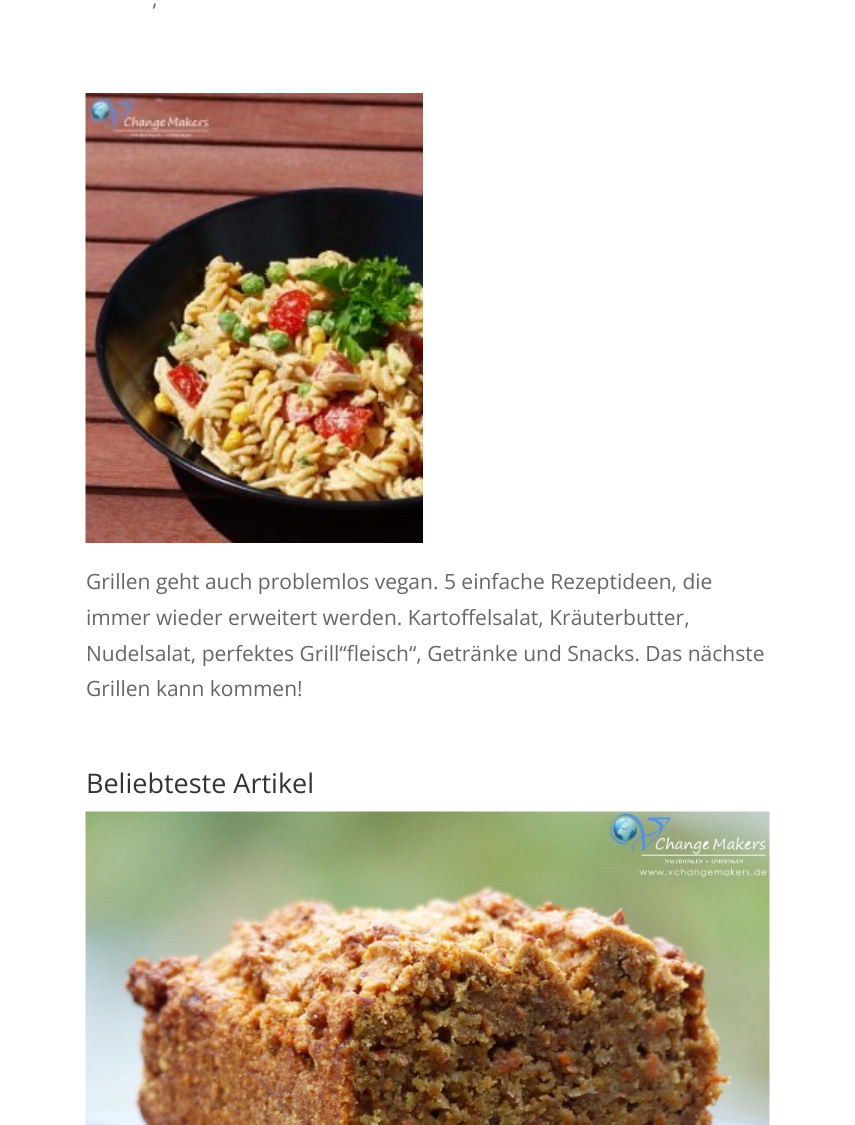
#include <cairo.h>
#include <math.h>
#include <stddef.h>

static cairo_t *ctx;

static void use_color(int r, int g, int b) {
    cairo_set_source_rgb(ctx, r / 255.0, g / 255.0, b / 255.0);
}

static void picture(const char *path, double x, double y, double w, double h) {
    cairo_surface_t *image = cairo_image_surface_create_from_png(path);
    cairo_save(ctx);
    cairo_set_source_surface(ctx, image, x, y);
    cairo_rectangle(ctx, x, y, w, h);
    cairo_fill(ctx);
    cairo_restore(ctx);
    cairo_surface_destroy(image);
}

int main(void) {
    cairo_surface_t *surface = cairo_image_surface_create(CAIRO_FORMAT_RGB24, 855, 1125);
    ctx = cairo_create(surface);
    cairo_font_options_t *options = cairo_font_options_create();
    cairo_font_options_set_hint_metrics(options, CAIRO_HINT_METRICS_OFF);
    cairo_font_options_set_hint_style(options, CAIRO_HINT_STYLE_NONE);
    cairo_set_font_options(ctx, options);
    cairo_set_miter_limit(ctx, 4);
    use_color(255, 255, 255);
    cairo_paint(ctx);
    cairo_select_font_face(ctx, "Open Sans", CAIRO_FONT_SLANT_NORMAL, CAIRO_FONT_WEIGHT_NORMAL);
    cairo_set_font_size(ctx, 21);
    use_color(102, 102, 102);
    cairo_move_to(ctx, 152, 6);
    cairo_show_text(ctx, ",");
    picture("img1.png", 85, 93, 338, 450);
    cairo_move_to(ctx, 86, 589);
    cairo_show_text(ctx, "Grillen geht auch problemlos vegan. 5 einfache Rezeptideen, die");
    cairo_move_to(ctx, 86, 625);
    cairo_show_text(ctx, "immer wieder erweitert werden. Kartoffelsalat, Kräuterbutter,");
    cairo_move_to(ctx, 86, 661);
    cairo_show_text(ctx, "Nudelsalat, perfektes Grill“fleisch“, Getränke und Snacks. Das nächste");
    cairo_move_to(ctx, 86, 696);
    cairo_show_text(ctx, "Grillen kann kommen!");
    cairo_set_font_size(ctx, 27);
    use_color(51, 51, 51);
    cairo_move_to(ctx, 86, 793);
    cairo_show_text(ctx, "Beliebteste Artikel");
    picture("img2.png", 85, 811, 685, 314);
    cairo_surface_write_to_png(surface, "result.png");
    cairo_font_options_destroy(options);
    cairo_destroy(ctx);
    cairo_surface_destroy(surface);
    return 0;
}
